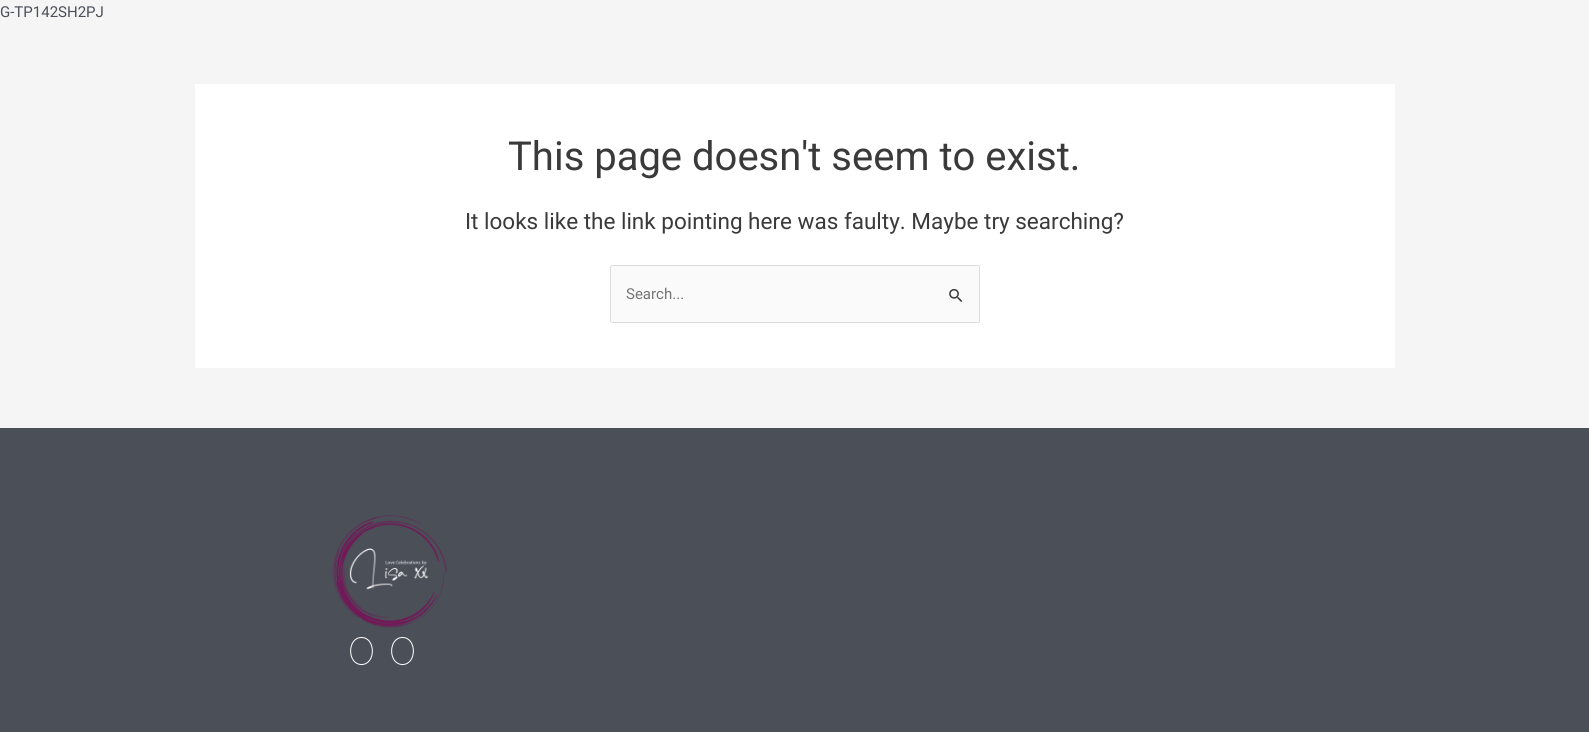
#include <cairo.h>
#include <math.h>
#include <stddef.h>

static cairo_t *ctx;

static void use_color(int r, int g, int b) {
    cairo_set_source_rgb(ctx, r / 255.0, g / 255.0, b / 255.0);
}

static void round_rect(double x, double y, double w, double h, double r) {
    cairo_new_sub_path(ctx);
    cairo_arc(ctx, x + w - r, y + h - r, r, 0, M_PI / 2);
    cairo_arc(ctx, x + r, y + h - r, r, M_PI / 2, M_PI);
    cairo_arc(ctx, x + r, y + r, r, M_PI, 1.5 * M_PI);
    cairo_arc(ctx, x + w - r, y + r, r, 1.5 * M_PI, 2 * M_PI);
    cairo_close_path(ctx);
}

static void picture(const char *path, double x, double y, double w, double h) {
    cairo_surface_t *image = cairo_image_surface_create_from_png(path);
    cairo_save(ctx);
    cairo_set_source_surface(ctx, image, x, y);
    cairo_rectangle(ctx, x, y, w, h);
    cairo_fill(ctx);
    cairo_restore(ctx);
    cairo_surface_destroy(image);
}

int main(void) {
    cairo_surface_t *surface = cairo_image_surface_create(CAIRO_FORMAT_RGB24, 1589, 732);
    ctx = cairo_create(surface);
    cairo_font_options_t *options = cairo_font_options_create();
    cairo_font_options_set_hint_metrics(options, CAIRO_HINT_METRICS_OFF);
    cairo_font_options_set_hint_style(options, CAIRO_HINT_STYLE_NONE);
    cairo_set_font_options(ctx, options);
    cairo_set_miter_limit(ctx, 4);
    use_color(245, 245, 245);
    cairo_paint(ctx);
    cairo_select_font_face(ctx, "Roboto", CAIRO_FONT_SLANT_NORMAL, CAIRO_FONT_WEIGHT_NORMAL);
    cairo_set_font_size(ctx, 15);
    use_color(75, 79, 88);
    cairo_move_to(ctx, 0, 17);
    cairo_show_text(ctx, "G-TP142SH2PJ");
    use_color(255, 255, 255);
    cairo_rectangle(ctx, 195, 84, 1200, 284);
    cairo_fill(ctx);
    cairo_set_font_size(ctx, 40);
    use_color(58, 58, 58);
    cairo_move_to(ctx, 508, 170);
    cairo_show_text(ctx, "This page doesn't seem to exist.");
    cairo_set_font_size(ctx, 22.5);
    cairo_move_to(ctx, 465, 229);
    cairo_show_text(ctx, "It looks like the link pointing here was faulty. Maybe try searching?");
    use_color(250, 250, 250);
    round_rect(610.5, 265.5, 369, 57, 1.5);
    cairo_fill_preserve(ctx);
    use_color(221, 221, 221);
    cairo_set_line_width(ctx, 1);
    cairo_stroke(ctx);
    cairo_set_font_size(ctx, 15);
    use_color(117, 117, 117);
    cairo_move_to(ctx, 626, 299);
    cairo_show_text(ctx, "Search...");
    picture("img1.png", 949, 288, 14, 14);
    use_color(75, 79, 88);
    cairo_rectangle(ctx, 0, 428, 1589, 304);
    cairo_fill(ctx);
    picture("img2.png", 332, 515, 115, 113);
    cairo_new_path(ctx);
    cairo_move_to(ctx, 361.5, 637.5);
    cairo_curve_to(ctx, 376, 637.5, 376, 664.5, 361.5, 664.5);
    cairo_curve_to(ctx, 347, 664.5, 347, 637.5, 361.5, 637.5);
    cairo_close_path(ctx);
    use_color(255, 255, 255);
    cairo_stroke(ctx);
    cairo_new_path(ctx);
    cairo_move_to(ctx, 402.5, 637.5);
    cairo_curve_to(ctx, 417, 637.5, 417, 664.5, 402.5, 664.5);
    cairo_curve_to(ctx, 388, 664.5, 388, 637.5, 402.5, 637.5);
    cairo_close_path(ctx);
    cairo_stroke(ctx);
    cairo_surface_write_to_png(surface, "result.png");
    cairo_font_options_destroy(options);
    cairo_destroy(ctx);
    cairo_surface_destroy(surface);
    return 0;
}
